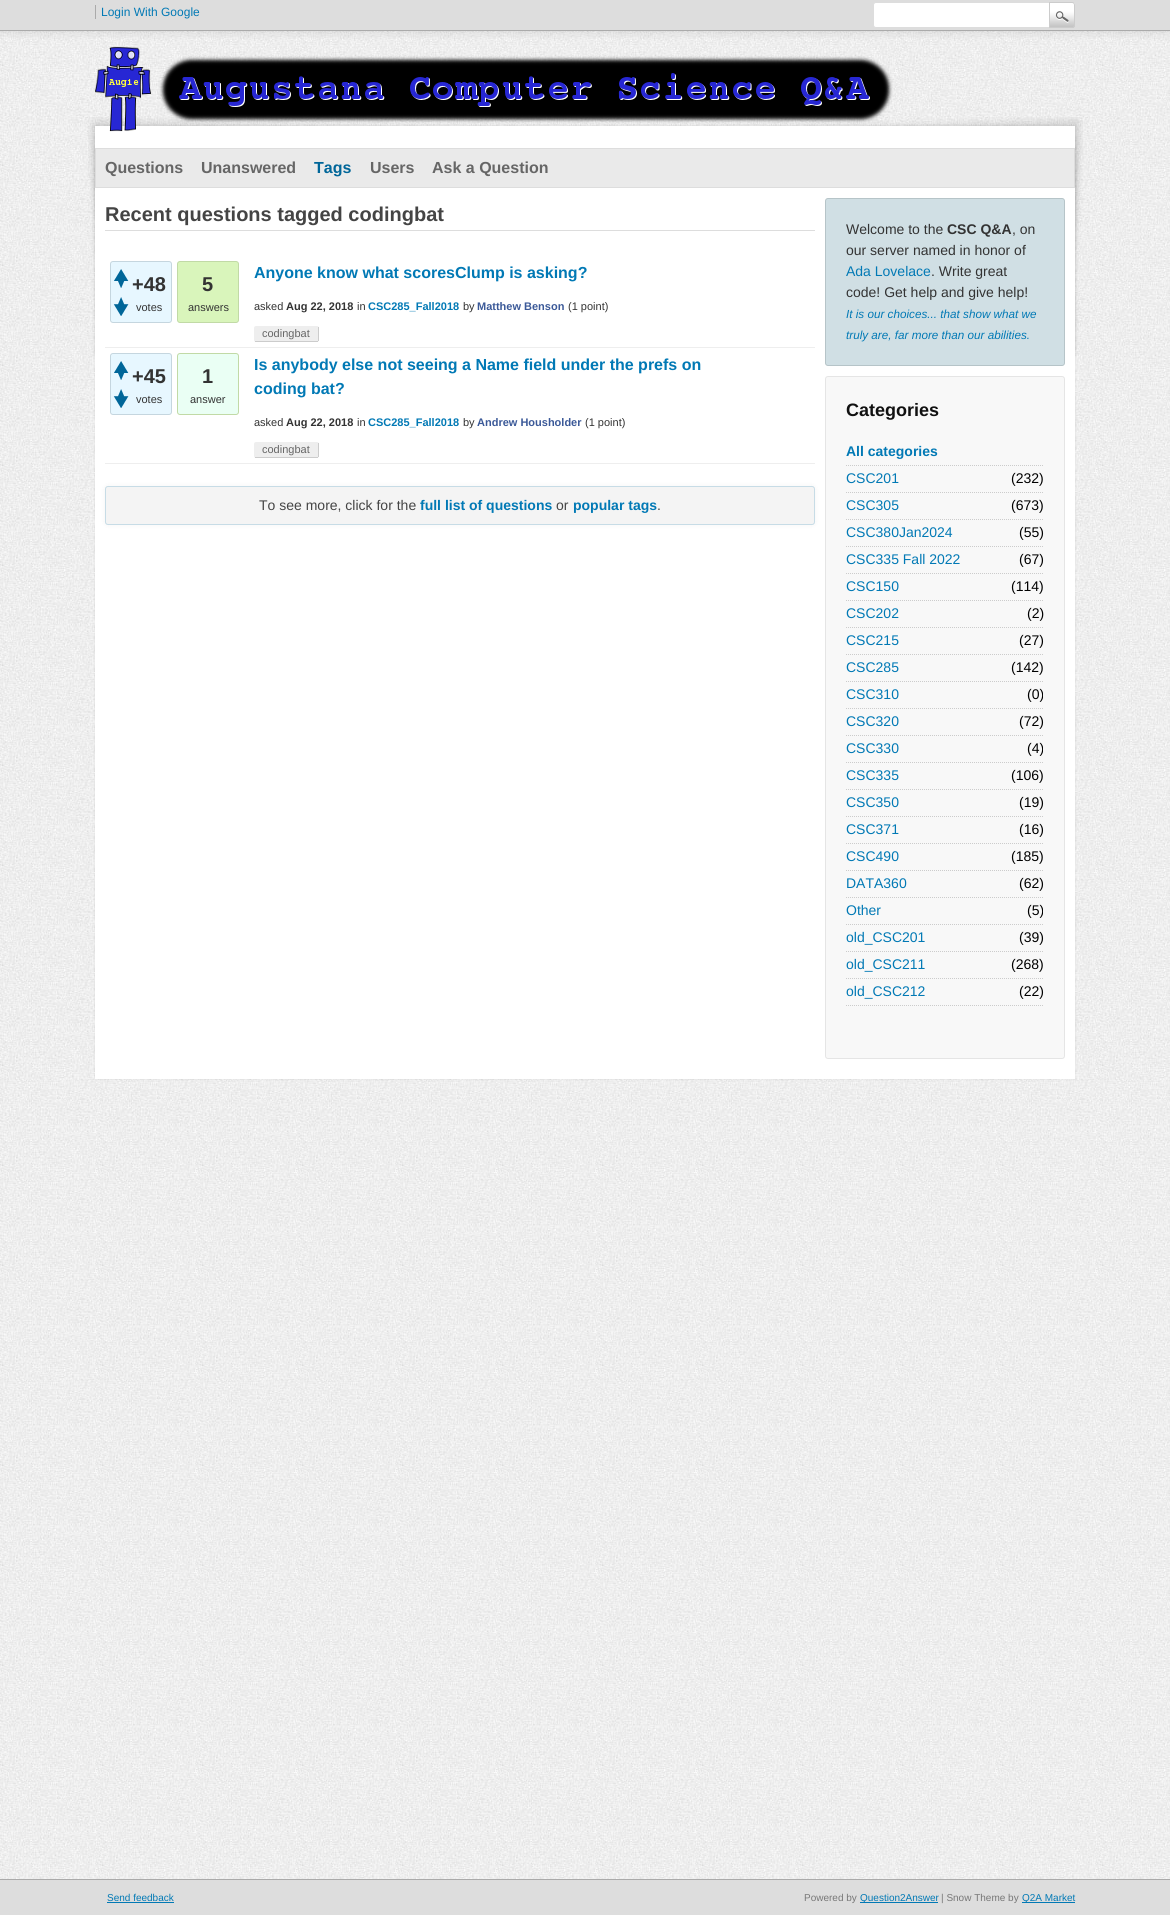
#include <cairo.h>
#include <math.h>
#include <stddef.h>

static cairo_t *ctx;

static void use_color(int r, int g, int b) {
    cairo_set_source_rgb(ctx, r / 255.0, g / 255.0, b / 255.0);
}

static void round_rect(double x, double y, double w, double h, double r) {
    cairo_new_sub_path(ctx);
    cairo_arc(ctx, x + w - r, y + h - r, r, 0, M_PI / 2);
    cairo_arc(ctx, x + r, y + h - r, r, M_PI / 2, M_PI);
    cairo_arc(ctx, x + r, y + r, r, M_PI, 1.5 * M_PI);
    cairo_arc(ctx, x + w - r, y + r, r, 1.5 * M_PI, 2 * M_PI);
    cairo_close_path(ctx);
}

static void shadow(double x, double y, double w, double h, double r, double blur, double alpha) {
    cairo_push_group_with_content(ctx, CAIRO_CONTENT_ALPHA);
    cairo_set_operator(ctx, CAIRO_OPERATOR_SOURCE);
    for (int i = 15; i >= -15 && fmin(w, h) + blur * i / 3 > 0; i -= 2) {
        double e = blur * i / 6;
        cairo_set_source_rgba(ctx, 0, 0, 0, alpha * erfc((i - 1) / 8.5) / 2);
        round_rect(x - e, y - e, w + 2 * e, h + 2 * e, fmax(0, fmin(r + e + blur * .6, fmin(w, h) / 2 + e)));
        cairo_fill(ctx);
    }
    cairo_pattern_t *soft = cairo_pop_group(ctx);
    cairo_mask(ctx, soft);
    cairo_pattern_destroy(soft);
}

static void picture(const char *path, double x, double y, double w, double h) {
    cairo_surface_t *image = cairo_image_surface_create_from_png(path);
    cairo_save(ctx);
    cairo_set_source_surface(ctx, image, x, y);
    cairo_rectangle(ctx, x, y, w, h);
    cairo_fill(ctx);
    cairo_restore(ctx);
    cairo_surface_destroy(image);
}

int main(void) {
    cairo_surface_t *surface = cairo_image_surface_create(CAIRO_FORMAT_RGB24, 1170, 1915);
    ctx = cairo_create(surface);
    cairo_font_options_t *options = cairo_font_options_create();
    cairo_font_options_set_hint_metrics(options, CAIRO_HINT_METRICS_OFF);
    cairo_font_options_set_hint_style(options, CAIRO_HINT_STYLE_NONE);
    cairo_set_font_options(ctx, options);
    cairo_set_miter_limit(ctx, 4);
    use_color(255, 255, 255);
    cairo_paint(ctx);
    picture("img1.png", 0, 31, 1170, 1848);
    use_color(0, 0, 0);
    shadow(0, 0, 1170, 31, 0, 5, 0.15);
    use_color(221, 221, 221);
    cairo_rectangle(ctx, 0, 0, 1170, 30);
    cairo_fill(ctx);
    use_color(170, 170, 170);
    cairo_rectangle(ctx, 0, 30, 1170, 1);
    cairo_fill(ctx);
    cairo_select_font_face(ctx, "Liberation Sans", CAIRO_FONT_SLANT_NORMAL, CAIRO_FONT_WEIGHT_NORMAL);
    cairo_set_font_size(ctx, 12);
    use_color(1, 121, 181);
    cairo_move_to(ctx, 101, 16);
    cairo_show_text(ctx, "Login With Google");
    use_color(170, 170, 170);
    cairo_rectangle(ctx, 95, 5, 1, 14);
    cairo_fill(ctx);
    use_color(255, 255, 255);
    cairo_new_path(ctx);
    cairo_move_to(ctx, 876, 2.5);
    cairo_line_to(ctx, 1049.5, 2.5);
    cairo_line_to(ctx, 1049.5, 27.5);
    cairo_line_to(ctx, 876, 27.5);
    cairo_curve_to(ctx, 874.5, 27.5, 873.5, 26.5, 873.5, 25);
    cairo_line_to(ctx, 873.5, 5);
    cairo_curve_to(ctx, 873.5, 3.5, 874.5, 2.5, 876, 2.5);
    cairo_close_path(ctx);
    cairo_fill_preserve(ctx);
    use_color(221, 221, 221);
    cairo_set_line_width(ctx, 1);
    cairo_stroke(ctx);
    picture("img2.png", 1050, 3, 25, 25);
    cairo_new_path(ctx);
    cairo_move_to(ctx, 1049.5, 2.5);
    cairo_line_to(ctx, 1072, 2.5);
    cairo_curve_to(ctx, 1073.5, 2.5, 1074.5, 3.5, 1074.5, 5);
    cairo_line_to(ctx, 1074.5, 25);
    cairo_curve_to(ctx, 1074.5, 26.5, 1073.5, 27.5, 1072, 27.5);
    cairo_line_to(ctx, 1049.5, 27.5);
    cairo_close_path(ctx);
    use_color(204, 204, 204);
    cairo_stroke(ctx);
    picture("img4.png", 88, 117, 995, 239);
    use_color(0, 0, 0);
    shadow(95, 126, 980, 953, 0, 1, 0.1);
    use_color(255, 255, 255);
    cairo_rectangle(ctx, 95, 126, 980, 953);
    cairo_fill(ctx);
    picture("img3.png", 95, 46, 798, 86);
    use_color(234, 234, 234);
    cairo_rectangle(ctx, 95.5, 148.5, 979, 39);
    cairo_fill_preserve(ctx);
    use_color(221, 221, 221);
    cairo_stroke(ctx);
    cairo_select_font_face(ctx, "Liberation Sans", CAIRO_FONT_SLANT_NORMAL, CAIRO_FONT_WEIGHT_BOLD);
    cairo_set_font_size(ctx, 16);
    use_color(102, 102, 102);
    cairo_move_to(ctx, 105, 173);
    cairo_show_text(ctx, "Questions");
    cairo_move_to(ctx, 201, 173);
    cairo_show_text(ctx, "Unanswered");
    use_color(0, 102, 153);
    cairo_move_to(ctx, 314, 173);
    cairo_show_text(ctx, "Tags");
    use_color(102, 102, 102);
    cairo_move_to(ctx, 370, 173);
    cairo_show_text(ctx, "Users");
    cairo_move_to(ctx, 432, 173);
    cairo_show_text(ctx, "Ask a Question");
    use_color(221, 221, 221);
    cairo_rectangle(ctx, 105, 230, 710, 1);
    cairo_fill(ctx);
    cairo_set_font_size(ctx, 20);
    use_color(68, 68, 68);
    cairo_move_to(ctx, 105, 221);
    cairo_show_text(ctx, "Recent questions tagged codingbat");
    use_color(238, 238, 238);
    cairo_rectangle(ctx, 105, 347, 710, 1);
    cairo_fill(ctx);
    use_color(231, 247, 255);
    round_rect(110.5, 261.5, 61, 61, 2.5);
    cairo_fill_preserve(ctx);
    use_color(197, 214, 223);
    cairo_stroke(ctx);
    picture("img5.png", 114, 269, 15, 19);
    picture("img6.png", 113, 297, 16, 19);
    use_color(51, 51, 51);
    cairo_move_to(ctx, 132, 291);
    cairo_show_text(ctx, "+48");
    cairo_select_font_face(ctx, "Liberation Sans", CAIRO_FONT_SLANT_NORMAL, CAIRO_FONT_WEIGHT_NORMAL);
    cairo_set_font_size(ctx, 11);
    cairo_move_to(ctx, 136, 311);
    cairo_show_text(ctx, "votes");
    use_color(217, 245, 187);
    round_rect(177.5, 261.5, 61, 61, 2.5);
    cairo_fill_preserve(ctx);
    use_color(193, 218, 166);
    cairo_stroke(ctx);
    cairo_select_font_face(ctx, "Liberation Sans", CAIRO_FONT_SLANT_NORMAL, CAIRO_FONT_WEIGHT_BOLD);
    cairo_set_font_size(ctx, 20);
    use_color(51, 51, 51);
    cairo_move_to(ctx, 202, 291);
    cairo_show_text(ctx, "5");
    cairo_select_font_face(ctx, "Liberation Sans", CAIRO_FONT_SLANT_NORMAL, CAIRO_FONT_WEIGHT_NORMAL);
    cairo_set_font_size(ctx, 11);
    cairo_move_to(ctx, 188, 311);
    cairo_show_text(ctx, "answers");
    cairo_select_font_face(ctx, "Liberation Sans", CAIRO_FONT_SLANT_NORMAL, CAIRO_FONT_WEIGHT_BOLD);
    cairo_set_font_size(ctx, 16);
    use_color(1, 121, 181);
    cairo_move_to(ctx, 254, 278);
    cairo_show_text(ctx, "Anyone know what scoresClump is asking?");
    cairo_select_font_face(ctx, "Liberation Sans", CAIRO_FONT_SLANT_NORMAL, CAIRO_FONT_WEIGHT_NORMAL);
    cairo_set_font_size(ctx, 11);
    use_color(51, 51, 51);
    cairo_move_to(ctx, 254, 310);
    cairo_show_text(ctx, "asked");
    cairo_select_font_face(ctx, "Liberation Sans", CAIRO_FONT_SLANT_NORMAL, CAIRO_FONT_WEIGHT_BOLD);
    cairo_move_to(ctx, 286, 310);
    cairo_show_text(ctx, "Aug 22, 2018");
    cairo_select_font_face(ctx, "Liberation Sans", CAIRO_FONT_SLANT_NORMAL, CAIRO_FONT_WEIGHT_NORMAL);
    cairo_move_to(ctx, 357, 310);
    cairo_show_text(ctx, "in");
    cairo_select_font_face(ctx, "Liberation Sans", CAIRO_FONT_SLANT_NORMAL, CAIRO_FONT_WEIGHT_BOLD);
    use_color(1, 121, 181);
    cairo_move_to(ctx, 368, 310);
    cairo_show_text(ctx, "CSC285_Fall2018");
    cairo_select_font_face(ctx, "Liberation Sans", CAIRO_FONT_SLANT_NORMAL, CAIRO_FONT_WEIGHT_NORMAL);
    use_color(51, 51, 51);
    cairo_move_to(ctx, 463, 310);
    cairo_show_text(ctx, "by");
    cairo_select_font_face(ctx, "Liberation Sans", CAIRO_FONT_SLANT_NORMAL, CAIRO_FONT_WEIGHT_BOLD);
    use_color(59, 89, 152);
    cairo_move_to(ctx, 477, 310);
    cairo_show_text(ctx, "Matthew Benson");
    cairo_select_font_face(ctx, "Liberation Sans", CAIRO_FONT_SLANT_NORMAL, CAIRO_FONT_WEIGHT_NORMAL);
    use_color(51, 51, 51);
    cairo_move_to(ctx, 568, 310);
    cairo_show_text(ctx, "(1 point)");
    use_color(238, 238, 238);
    round_rect(254, 326, 65, 16, 2);
    cairo_fill(ctx);
    use_color(204, 204, 204);
    cairo_rectangle(ctx, 318, 327, 1, 14);
    cairo_fill(ctx);
    cairo_rectangle(ctx, 255, 341, 63, 1);
    cairo_fill(ctx);
    use_color(102, 102, 102);
    cairo_move_to(ctx, 262, 337);
    cairo_show_text(ctx, "codingbat");
    use_color(238, 238, 238);
    cairo_rectangle(ctx, 105, 463, 710, 1);
    cairo_fill(ctx);
    use_color(231, 247, 255);
    round_rect(110.5, 353.5, 61, 61, 2.5);
    cairo_fill_preserve(ctx);
    use_color(197, 214, 223);
    cairo_stroke(ctx);
    picture("img5.png", 114, 361, 15, 19);
    picture("img6.png", 113, 389, 16, 19);
    cairo_select_font_face(ctx, "Liberation Sans", CAIRO_FONT_SLANT_NORMAL, CAIRO_FONT_WEIGHT_BOLD);
    cairo_set_font_size(ctx, 20);
    use_color(51, 51, 51);
    cairo_move_to(ctx, 132, 383);
    cairo_show_text(ctx, "+45");
    cairo_select_font_face(ctx, "Liberation Sans", CAIRO_FONT_SLANT_NORMAL, CAIRO_FONT_WEIGHT_NORMAL);
    cairo_set_font_size(ctx, 11);
    cairo_move_to(ctx, 136, 403);
    cairo_show_text(ctx, "votes");
    use_color(234, 255, 244);
    round_rect(177.5, 353.5, 61, 61, 2.5);
    cairo_fill_preserve(ctx);
    use_color(193, 218, 166);
    cairo_stroke(ctx);
    cairo_select_font_face(ctx, "Liberation Sans", CAIRO_FONT_SLANT_NORMAL, CAIRO_FONT_WEIGHT_BOLD);
    cairo_set_font_size(ctx, 20);
    use_color(51, 51, 51);
    cairo_move_to(ctx, 202, 383);
    cairo_show_text(ctx, "1");
    cairo_select_font_face(ctx, "Liberation Sans", CAIRO_FONT_SLANT_NORMAL, CAIRO_FONT_WEIGHT_NORMAL);
    cairo_set_font_size(ctx, 11);
    cairo_move_to(ctx, 190, 403);
    cairo_show_text(ctx, "answer");
    cairo_select_font_face(ctx, "Liberation Sans", CAIRO_FONT_SLANT_NORMAL, CAIRO_FONT_WEIGHT_BOLD);
    cairo_set_font_size(ctx, 16);
    use_color(1, 121, 181);
    cairo_move_to(ctx, 254, 370);
    cairo_show_text(ctx, "Is anybody else not seeing a Name field under the prefs on");
    cairo_move_to(ctx, 254, 394);
    cairo_show_text(ctx, "coding bat?");
    cairo_select_font_face(ctx, "Liberation Sans", CAIRO_FONT_SLANT_NORMAL, CAIRO_FONT_WEIGHT_NORMAL);
    cairo_set_font_size(ctx, 11);
    use_color(51, 51, 51);
    cairo_move_to(ctx, 254, 426);
    cairo_show_text(ctx, "asked");
    cairo_select_font_face(ctx, "Liberation Sans", CAIRO_FONT_SLANT_NORMAL, CAIRO_FONT_WEIGHT_BOLD);
    cairo_move_to(ctx, 286, 426);
    cairo_show_text(ctx, "Aug 22, 2018");
    cairo_select_font_face(ctx, "Liberation Sans", CAIRO_FONT_SLANT_NORMAL, CAIRO_FONT_WEIGHT_NORMAL);
    cairo_move_to(ctx, 357, 426);
    cairo_show_text(ctx, "in");
    cairo_select_font_face(ctx, "Liberation Sans", CAIRO_FONT_SLANT_NORMAL, CAIRO_FONT_WEIGHT_BOLD);
    use_color(1, 121, 181);
    cairo_move_to(ctx, 368, 426);
    cairo_show_text(ctx, "CSC285_Fall2018");
    cairo_select_font_face(ctx, "Liberation Sans", CAIRO_FONT_SLANT_NORMAL, CAIRO_FONT_WEIGHT_NORMAL);
    use_color(51, 51, 51);
    cairo_move_to(ctx, 463, 426);
    cairo_show_text(ctx, "by");
    cairo_select_font_face(ctx, "Liberation Sans", CAIRO_FONT_SLANT_NORMAL, CAIRO_FONT_WEIGHT_BOLD);
    use_color(59, 89, 152);
    cairo_move_to(ctx, 477, 426);
    cairo_show_text(ctx, "Andrew Housholder");
    cairo_select_font_face(ctx, "Liberation Sans", CAIRO_FONT_SLANT_NORMAL, CAIRO_FONT_WEIGHT_NORMAL);
    use_color(51, 51, 51);
    cairo_move_to(ctx, 585, 426);
    cairo_show_text(ctx, "(1 point)");
    use_color(238, 238, 238);
    round_rect(254, 442, 65, 16, 2);
    cairo_fill(ctx);
    use_color(204, 204, 204);
    cairo_rectangle(ctx, 318, 443, 1, 14);
    cairo_fill(ctx);
    cairo_rectangle(ctx, 255, 457, 63, 1);
    cairo_fill(ctx);
    use_color(102, 102, 102);
    cairo_move_to(ctx, 262, 453);
    cairo_show_text(ctx, "codingbat");
    use_color(0, 0, 0);
    shadow(105, 486, 710, 39, 3, 2.5, 0.05);
    use_color(244, 244, 244);
    round_rect(105.5, 486.5, 709, 38, 2.5);
    cairo_fill_preserve(ctx);
    use_color(199, 220, 230);
    cairo_stroke(ctx);
    cairo_set_font_size(ctx, 14);
    use_color(68, 68, 68);
    cairo_move_to(ctx, 259, 510);
    cairo_show_text(ctx, "To see more, click for the");
    cairo_select_font_face(ctx, "Liberation Sans", CAIRO_FONT_SLANT_NORMAL, CAIRO_FONT_WEIGHT_BOLD);
    use_color(1, 121, 181);
    cairo_move_to(ctx, 420, 510);
    cairo_show_text(ctx, "full list of questions");
    cairo_select_font_face(ctx, "Liberation Sans", CAIRO_FONT_SLANT_NORMAL, CAIRO_FONT_WEIGHT_NORMAL);
    use_color(68, 68, 68);
    cairo_move_to(ctx, 556, 510);
    cairo_show_text(ctx, "or");
    cairo_select_font_face(ctx, "Liberation Sans", CAIRO_FONT_SLANT_NORMAL, CAIRO_FONT_WEIGHT_BOLD);
    use_color(1, 121, 181);
    cairo_move_to(ctx, 573, 510);
    cairo_show_text(ctx, "popular tags");
    cairo_select_font_face(ctx, "Liberation Sans", CAIRO_FONT_SLANT_NORMAL, CAIRO_FONT_WEIGHT_NORMAL);
    use_color(68, 68, 68);
    cairo_move_to(ctx, 657, 510);
    cairo_show_text(ctx, ".");
    use_color(208, 223, 228);
    round_rect(825.5, 198.5, 239, 167, 2.5);
    cairo_fill_preserve(ctx);
    use_color(182, 196, 200);
    cairo_stroke(ctx);
    use_color(51, 51, 51);
    cairo_move_to(ctx, 846, 234);
    cairo_show_text(ctx, "Welcome to the");
    cairo_select_font_face(ctx, "Liberation Sans", CAIRO_FONT_SLANT_NORMAL, CAIRO_FONT_WEIGHT_BOLD);
    cairo_move_to(ctx, 947, 234);
    cairo_show_text(ctx, "CSC Q&A");
    cairo_select_font_face(ctx, "Liberation Sans", CAIRO_FONT_SLANT_NORMAL, CAIRO_FONT_WEIGHT_NORMAL);
    cairo_move_to(ctx, 1012, 234);
    cairo_show_text(ctx, ", on");
    cairo_move_to(ctx, 846, 255);
    cairo_show_text(ctx, "our server named in honor of");
    use_color(1, 121, 181);
    cairo_move_to(ctx, 846, 276);
    cairo_show_text(ctx, "Ada Lovelace");
    use_color(51, 51, 51);
    cairo_move_to(ctx, 931, 276);
    cairo_show_text(ctx, ". Write great");
    cairo_move_to(ctx, 846, 297);
    cairo_show_text(ctx, "code! Get help and give help!");
    cairo_select_font_face(ctx, "Liberation Sans", CAIRO_FONT_SLANT_ITALIC, CAIRO_FONT_WEIGHT_NORMAL);
    cairo_set_font_size(ctx, 11.7);
    use_color(1, 121, 181);
    cairo_move_to(ctx, 846, 318);
    cairo_show_text(ctx, "It is our choices... that show what we");
    cairo_move_to(ctx, 846, 339);
    cairo_show_text(ctx, "truly are, far more than our abilities.");
    use_color(248, 248, 248);
    round_rect(825.5, 376.5, 239, 682, 2.5);
    cairo_fill_preserve(ctx);
    use_color(229, 229, 229);
    cairo_stroke(ctx);
    cairo_select_font_face(ctx, "Liberation Sans", CAIRO_FONT_SLANT_NORMAL, CAIRO_FONT_WEIGHT_BOLD);
    cairo_set_font_size(ctx, 18);
    use_color(17, 17, 17);
    cairo_move_to(ctx, 846, 416);
    cairo_show_text(ctx, "Categories");
    cairo_new_path(ctx);
    cairo_move_to(ctx, 846, 465.5);
    cairo_line_to(ctx, 1044, 465.5);
    use_color(204, 204, 204);
    cairo_set_dash(ctx, (double[]){1, 1}, 2, 0);
    cairo_stroke(ctx);
    cairo_set_font_size(ctx, 14);
    use_color(1, 121, 181);
    cairo_move_to(ctx, 846, 456);
    cairo_show_text(ctx, "All categories");
    cairo_new_path(ctx);
    cairo_move_to(ctx, 846, 492.5);
    cairo_line_to(ctx, 1044, 492.5);
    use_color(204, 204, 204);
    cairo_stroke(ctx);
    cairo_select_font_face(ctx, "Liberation Sans", CAIRO_FONT_SLANT_NORMAL, CAIRO_FONT_WEIGHT_NORMAL);
    use_color(1, 121, 181);
    cairo_move_to(ctx, 846, 483);
    cairo_show_text(ctx, "CSC201");
    use_color(0, 0, 0);
    cairo_move_to(ctx, 1011, 483);
    cairo_show_text(ctx, "(232)");
    cairo_new_path(ctx);
    cairo_move_to(ctx, 846, 519.5);
    cairo_line_to(ctx, 1044, 519.5);
    use_color(204, 204, 204);
    cairo_stroke(ctx);
    use_color(1, 121, 181);
    cairo_move_to(ctx, 846, 510);
    cairo_show_text(ctx, "CSC305");
    use_color(0, 0, 0);
    cairo_move_to(ctx, 1011, 510);
    cairo_show_text(ctx, "(673)");
    cairo_new_path(ctx);
    cairo_move_to(ctx, 846, 546.5);
    cairo_line_to(ctx, 1044, 546.5);
    use_color(204, 204, 204);
    cairo_stroke(ctx);
    use_color(1, 121, 181);
    cairo_move_to(ctx, 846, 537);
    cairo_show_text(ctx, "CSC380Jan2024");
    use_color(0, 0, 0);
    cairo_move_to(ctx, 1019, 537);
    cairo_show_text(ctx, "(55)");
    cairo_new_path(ctx);
    cairo_move_to(ctx, 846, 573.5);
    cairo_line_to(ctx, 1044, 573.5);
    use_color(204, 204, 204);
    cairo_stroke(ctx);
    use_color(1, 121, 181);
    cairo_move_to(ctx, 846, 564);
    cairo_show_text(ctx, "CSC335 Fall 2022");
    use_color(0, 0, 0);
    cairo_move_to(ctx, 1019, 564);
    cairo_show_text(ctx, "(67)");
    cairo_new_path(ctx);
    cairo_move_to(ctx, 846, 600.5);
    cairo_line_to(ctx, 1044, 600.5);
    use_color(204, 204, 204);
    cairo_stroke(ctx);
    use_color(1, 121, 181);
    cairo_move_to(ctx, 846, 591);
    cairo_show_text(ctx, "CSC150");
    use_color(0, 0, 0);
    cairo_move_to(ctx, 1011, 591);
    cairo_show_text(ctx, "(114)");
    cairo_new_path(ctx);
    cairo_move_to(ctx, 846, 627.5);
    cairo_line_to(ctx, 1044, 627.5);
    use_color(204, 204, 204);
    cairo_stroke(ctx);
    use_color(1, 121, 181);
    cairo_move_to(ctx, 846, 618);
    cairo_show_text(ctx, "CSC202");
    use_color(0, 0, 0);
    cairo_move_to(ctx, 1027, 618);
    cairo_show_text(ctx, "(2)");
    cairo_new_path(ctx);
    cairo_move_to(ctx, 846, 654.5);
    cairo_line_to(ctx, 1044, 654.5);
    use_color(204, 204, 204);
    cairo_stroke(ctx);
    use_color(1, 121, 181);
    cairo_move_to(ctx, 846, 645);
    cairo_show_text(ctx, "CSC215");
    use_color(0, 0, 0);
    cairo_move_to(ctx, 1019, 645);
    cairo_show_text(ctx, "(27)");
    cairo_new_path(ctx);
    cairo_move_to(ctx, 846, 681.5);
    cairo_line_to(ctx, 1044, 681.5);
    use_color(204, 204, 204);
    cairo_stroke(ctx);
    use_color(1, 121, 181);
    cairo_move_to(ctx, 846, 672);
    cairo_show_text(ctx, "CSC285");
    use_color(0, 0, 0);
    cairo_move_to(ctx, 1011, 672);
    cairo_show_text(ctx, "(142)");
    cairo_new_path(ctx);
    cairo_move_to(ctx, 846, 708.5);
    cairo_line_to(ctx, 1044, 708.5);
    use_color(204, 204, 204);
    cairo_stroke(ctx);
    use_color(1, 121, 181);
    cairo_move_to(ctx, 846, 699);
    cairo_show_text(ctx, "CSC310");
    use_color(0, 0, 0);
    cairo_move_to(ctx, 1027, 699);
    cairo_show_text(ctx, "(0)");
    cairo_new_path(ctx);
    cairo_move_to(ctx, 846, 735.5);
    cairo_line_to(ctx, 1044, 735.5);
    use_color(204, 204, 204);
    cairo_stroke(ctx);
    use_color(1, 121, 181);
    cairo_move_to(ctx, 846, 726);
    cairo_show_text(ctx, "CSC320");
    use_color(0, 0, 0);
    cairo_move_to(ctx, 1019, 726);
    cairo_show_text(ctx, "(72)");
    cairo_new_path(ctx);
    cairo_move_to(ctx, 846, 762.5);
    cairo_line_to(ctx, 1044, 762.5);
    use_color(204, 204, 204);
    cairo_stroke(ctx);
    use_color(1, 121, 181);
    cairo_move_to(ctx, 846, 753);
    cairo_show_text(ctx, "CSC330");
    use_color(0, 0, 0);
    cairo_move_to(ctx, 1027, 753);
    cairo_show_text(ctx, "(4)");
    cairo_new_path(ctx);
    cairo_move_to(ctx, 846, 789.5);
    cairo_line_to(ctx, 1044, 789.5);
    use_color(204, 204, 204);
    cairo_stroke(ctx);
    use_color(1, 121, 181);
    cairo_move_to(ctx, 846, 780);
    cairo_show_text(ctx, "CSC335");
    use_color(0, 0, 0);
    cairo_move_to(ctx, 1011, 780);
    cairo_show_text(ctx, "(106)");
    cairo_new_path(ctx);
    cairo_move_to(ctx, 846, 816.5);
    cairo_line_to(ctx, 1044, 816.5);
    use_color(204, 204, 204);
    cairo_stroke(ctx);
    use_color(1, 121, 181);
    cairo_move_to(ctx, 846, 807);
    cairo_show_text(ctx, "CSC350");
    use_color(0, 0, 0);
    cairo_move_to(ctx, 1019, 807);
    cairo_show_text(ctx, "(19)");
    cairo_new_path(ctx);
    cairo_move_to(ctx, 846, 843.5);
    cairo_line_to(ctx, 1044, 843.5);
    use_color(204, 204, 204);
    cairo_stroke(ctx);
    use_color(1, 121, 181);
    cairo_move_to(ctx, 846, 834);
    cairo_show_text(ctx, "CSC371");
    use_color(0, 0, 0);
    cairo_move_to(ctx, 1019, 834);
    cairo_show_text(ctx, "(16)");
    cairo_new_path(ctx);
    cairo_move_to(ctx, 846, 870.5);
    cairo_line_to(ctx, 1044, 870.5);
    use_color(204, 204, 204);
    cairo_stroke(ctx);
    use_color(1, 121, 181);
    cairo_move_to(ctx, 846, 861);
    cairo_show_text(ctx, "CSC490");
    use_color(0, 0, 0);
    cairo_move_to(ctx, 1011, 861);
    cairo_show_text(ctx, "(185)");
    cairo_new_path(ctx);
    cairo_move_to(ctx, 846, 897.5);
    cairo_line_to(ctx, 1044, 897.5);
    use_color(204, 204, 204);
    cairo_stroke(ctx);
    use_color(1, 121, 181);
    cairo_move_to(ctx, 846, 888);
    cairo_show_text(ctx, "DATA360");
    use_color(0, 0, 0);
    cairo_move_to(ctx, 1019, 888);
    cairo_show_text(ctx, "(62)");
    cairo_new_path(ctx);
    cairo_move_to(ctx, 846, 924.5);
    cairo_line_to(ctx, 1044, 924.5);
    use_color(204, 204, 204);
    cairo_stroke(ctx);
    use_color(1, 121, 181);
    cairo_move_to(ctx, 846, 915);
    cairo_show_text(ctx, "Other");
    use_color(0, 0, 0);
    cairo_move_to(ctx, 1027, 915);
    cairo_show_text(ctx, "(5)");
    cairo_new_path(ctx);
    cairo_move_to(ctx, 846, 951.5);
    cairo_line_to(ctx, 1044, 951.5);
    use_color(204, 204, 204);
    cairo_stroke(ctx);
    use_color(1, 121, 181);
    cairo_move_to(ctx, 846, 942);
    cairo_show_text(ctx, "old_CSC201");
    use_color(0, 0, 0);
    cairo_move_to(ctx, 1019, 942);
    cairo_show_text(ctx, "(39)");
    cairo_new_path(ctx);
    cairo_move_to(ctx, 846, 978.5);
    cairo_line_to(ctx, 1044, 978.5);
    use_color(204, 204, 204);
    cairo_stroke(ctx);
    use_color(1, 121, 181);
    cairo_move_to(ctx, 846, 969);
    cairo_show_text(ctx, "old_CSC211");
    use_color(0, 0, 0);
    cairo_move_to(ctx, 1011, 969);
    cairo_show_text(ctx, "(268)");
    cairo_new_path(ctx);
    cairo_move_to(ctx, 846, 1005.5);
    cairo_line_to(ctx, 1044, 1005.5);
    use_color(204, 204, 204);
    cairo_stroke(ctx);
    use_color(1, 121, 181);
    cairo_move_to(ctx, 846, 996);
    cairo_show_text(ctx, "old_CSC212");
    use_color(0, 0, 0);
    cairo_move_to(ctx, 1019, 996);
    cairo_show_text(ctx, "(22)");
    use_color(221, 221, 221);
    cairo_rectangle(ctx, 0, 1880, 1170, 35);
    cairo_fill(ctx);
    use_color(170, 170, 170);
    cairo_rectangle(ctx, 0, 1879, 1170, 1);
    cairo_fill(ctx);
    cairo_set_font_size(ctx, 10);
    use_color(1, 121, 181);
    cairo_move_to(ctx, 107, 1901);
    cairo_show_text(ctx, "Send feedback");
    cairo_rectangle(ctx, 107, 1902, 67, 1);
    cairo_fill(ctx);
    use_color(119, 119, 119);
    cairo_move_to(ctx, 804, 1901);
    cairo_show_text(ctx, "Powered by");
    use_color(1, 121, 181);
    cairo_rectangle(ctx, 860, 1902, 78, 1);
    cairo_fill(ctx);
    cairo_move_to(ctx, 860, 1901);
    cairo_show_text(ctx, "Question2Answer");
    use_color(119, 119, 119);
    cairo_move_to(ctx, 941, 1901);
    cairo_show_text(ctx, "| Snow Theme by");
    use_color(1, 121, 181);
    cairo_rectangle(ctx, 1022, 1902, 53, 1);
    cairo_fill(ctx);
    cairo_move_to(ctx, 1022, 1901);
    cairo_show_text(ctx, "Q2A Market");
    cairo_surface_write_to_png(surface, "result.png");
    cairo_font_options_destroy(options);
    cairo_destroy(ctx);
    cairo_surface_destroy(surface);
    return 0;
}
